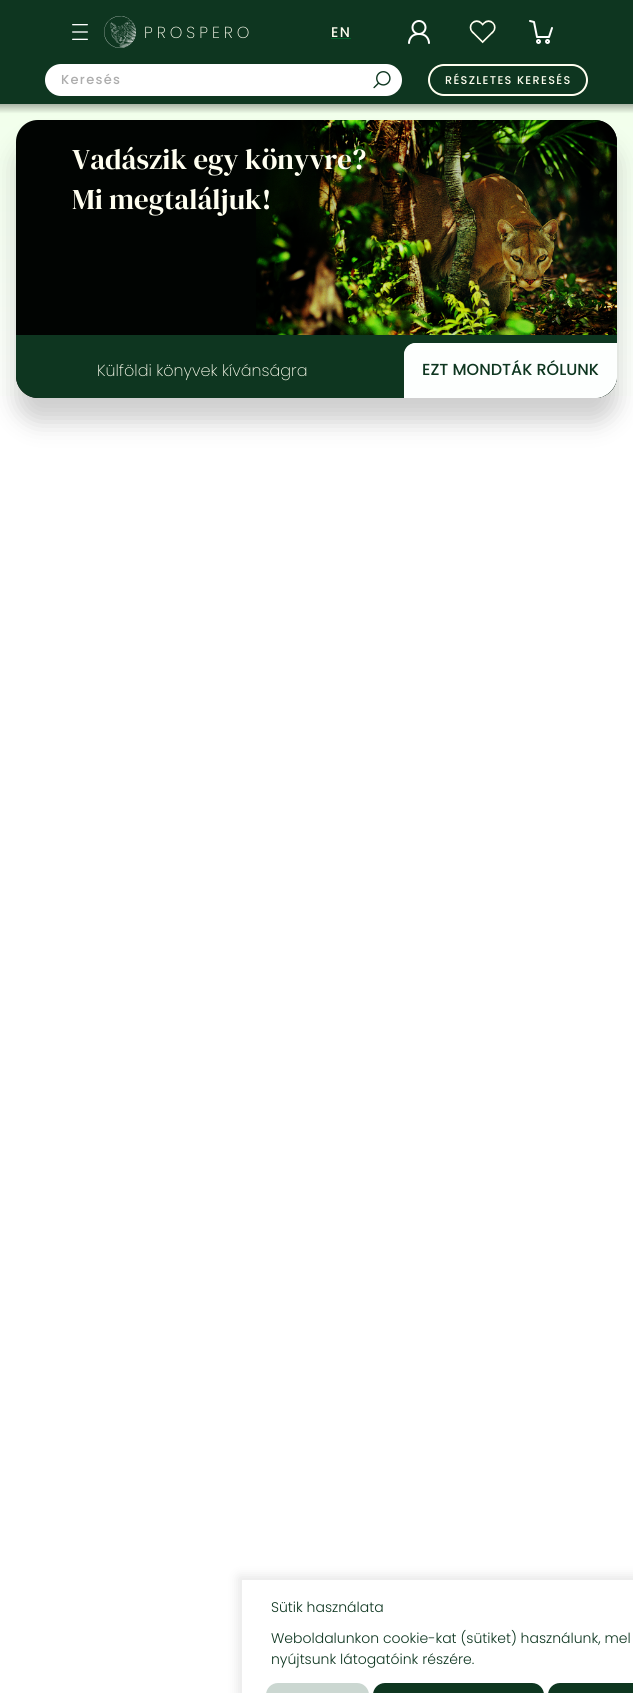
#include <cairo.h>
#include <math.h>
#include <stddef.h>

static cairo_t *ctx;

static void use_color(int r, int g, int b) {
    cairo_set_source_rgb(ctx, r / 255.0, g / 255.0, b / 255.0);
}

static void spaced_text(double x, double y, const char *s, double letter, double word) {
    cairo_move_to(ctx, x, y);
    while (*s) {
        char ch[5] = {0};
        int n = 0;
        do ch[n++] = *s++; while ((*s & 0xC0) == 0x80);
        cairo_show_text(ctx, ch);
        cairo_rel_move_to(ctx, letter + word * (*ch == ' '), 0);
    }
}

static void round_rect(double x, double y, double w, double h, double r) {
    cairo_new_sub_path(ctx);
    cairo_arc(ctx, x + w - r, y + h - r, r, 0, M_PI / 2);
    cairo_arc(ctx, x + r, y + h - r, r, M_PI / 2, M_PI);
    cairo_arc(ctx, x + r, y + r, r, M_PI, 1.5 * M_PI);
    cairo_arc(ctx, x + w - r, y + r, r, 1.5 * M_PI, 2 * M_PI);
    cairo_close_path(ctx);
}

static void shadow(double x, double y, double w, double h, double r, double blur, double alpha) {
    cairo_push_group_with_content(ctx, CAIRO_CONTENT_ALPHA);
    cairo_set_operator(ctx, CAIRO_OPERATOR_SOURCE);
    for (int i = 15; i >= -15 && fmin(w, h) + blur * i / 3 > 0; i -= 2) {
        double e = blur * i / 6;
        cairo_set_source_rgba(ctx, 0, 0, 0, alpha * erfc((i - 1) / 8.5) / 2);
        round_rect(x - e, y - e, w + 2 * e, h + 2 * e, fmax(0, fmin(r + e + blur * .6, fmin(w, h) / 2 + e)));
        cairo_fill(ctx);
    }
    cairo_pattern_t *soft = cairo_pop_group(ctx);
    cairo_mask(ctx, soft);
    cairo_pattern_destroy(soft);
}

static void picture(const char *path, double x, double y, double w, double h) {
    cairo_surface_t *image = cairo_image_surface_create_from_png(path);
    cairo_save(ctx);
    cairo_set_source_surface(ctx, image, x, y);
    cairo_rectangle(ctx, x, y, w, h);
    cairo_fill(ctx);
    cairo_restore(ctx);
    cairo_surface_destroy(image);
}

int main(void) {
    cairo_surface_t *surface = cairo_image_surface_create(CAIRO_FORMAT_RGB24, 633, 1693);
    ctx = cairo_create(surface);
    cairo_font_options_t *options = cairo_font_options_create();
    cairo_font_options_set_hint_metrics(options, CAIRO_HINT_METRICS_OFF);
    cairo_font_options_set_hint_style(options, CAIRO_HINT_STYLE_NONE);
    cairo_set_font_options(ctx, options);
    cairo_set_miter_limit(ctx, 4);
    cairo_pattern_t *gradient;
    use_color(255, 255, 255);
    cairo_paint(ctx);
    use_color(14, 54, 32);
    cairo_rectangle(ctx, 0, 0, 633, 104);
    cairo_fill(ctx);
    picture("img1.png", 72, 24, 16, 16);
    picture("img2.png", 104, 16, 32, 32);
    cairo_select_font_face(ctx, "Poppins ExtraLight", CAIRO_FONT_SLANT_NORMAL, CAIRO_FONT_WEIGHT_NORMAL);
    cairo_set_font_size(ctx, 16);
    use_color(255, 255, 240);
    spaced_text(144, 38, "PROSPERO", 4, 0);
    cairo_select_font_face(ctx, "Poppins Medium", CAIRO_FONT_SLANT_NORMAL, CAIRO_FONT_WEIGHT_NORMAL);
    cairo_set_font_size(ctx, 14);
    spaced_text(331, 37, "EN", 1.3, 0);
    use_color(0, 102, 44);
    cairo_rectangle(ctx, 331, 38, 20, 1);
    cairo_fill(ctx);
    picture("img3.png", 408, 20, 22, 24);
    picture("img4.png", 469, 20, 27, 24);
    picture("img5.png", 529, 20, 24, 24);
    use_color(255, 255, 255);
    round_rect(45, 64, 357, 32, 16);
    cairo_fill(ctx);
    cairo_set_font_size(ctx, 13);
    use_color(173, 173, 173);
    spaced_text(61, 84, "Keresés", 1.3, 0);
    picture("img6.png", 373, 71, 18, 18);
    round_rect(429, 65, 158, 30, 15);
    use_color(255, 255, 240);
    cairo_stroke(ctx);
    cairo_set_font_size(ctx, 11.25);
    spaced_text(445, 84, "RÉSZLETES KERESÉS", 1.3, 0);
    gradient = cairo_pattern_create_linear(317, 104, 317, 438);
    cairo_pattern_add_color_stop_rgba(gradient, 0, 0.945, 1, 0.922, 1);
    cairo_pattern_add_color_stop_rgba(gradient, 1, 1, 1, 1, 1);
    cairo_set_source(ctx, gradient);
    cairo_pattern_destroy(gradient);
    cairo_rectangle(ctx, 0, 116, 633, 280);
    cairo_fill(ctx);
    use_color(0, 0, 0);
    shadow(16, 144, 601, 278, 22, 12, 0.19);
    gradient = cairo_pattern_create_linear(317, 104, 317, 116);
    cairo_pattern_add_color_stop_rgba(gradient, 0, 0.663, 0.702, 0.647, 1);
    cairo_pattern_add_color_stop_rgba(gradient, 0.8, 0.945, 1, 0.922, 1);
    cairo_set_source(ctx, gradient);
    cairo_pattern_destroy(gradient);
    cairo_rectangle(ctx, 0, 104, 633, 12);
    cairo_fill(ctx);
    use_color(1, 4, 2);
    round_rect(16, 120, 601, 278, 22);
    cairo_fill(ctx);
    picture("img7.png", 256, 120, 361, 278);
    gradient = cairo_pattern_create_linear(16, 259, 617, 259);
    cairo_pattern_add_color_stop_rgba(gradient, 0.9, 0, 0, 0, 0.12);
    cairo_pattern_add_color_stop_rgba(gradient, 1, 0, 0, 0, 0);
    cairo_set_source(ctx, gradient);
    cairo_pattern_destroy(gradient);
    round_rect(16, 120, 601, 278, 22);
    cairo_fill(ctx);
    gradient = cairo_pattern_create_linear(64, 179, 617, 179);
    cairo_pattern_add_color_stop_rgba(gradient, 0.9, 0, 0, 0, 0.12);
    cairo_pattern_add_color_stop_rgba(gradient, 1, 0, 0, 0, 0);
    cairo_set_source(ctx, gradient);
    cairo_pattern_destroy(gradient);
    cairo_rectangle(ctx, 272, 139, 328, 80);
    cairo_fill(ctx);
    cairo_select_font_face(ctx, "DM Serif Display", CAIRO_FONT_SLANT_NORMAL, CAIRO_FONT_WEIGHT_NORMAL);
    cairo_set_font_size(ctx, 28.75);
    use_color(255, 255, 240);
    cairo_move_to(ctx, 72, 169);
    cairo_show_text(ctx, "Vadászik egy könyvre?");
    cairo_move_to(ctx, 72, 209);
    cairo_show_text(ctx, "Mi megtaláljuk!");
    use_color(14, 54, 32);
    cairo_new_path(ctx);
    cairo_move_to(ctx, 16, 335);
    cairo_line_to(ctx, 617, 335);
    cairo_line_to(ctx, 617, 376);
    cairo_curve_to(ctx, 617, 388, 607, 398, 595, 398);
    cairo_line_to(ctx, 38, 398);
    cairo_curve_to(ctx, 26, 398, 16, 388, 16, 376);
    cairo_close_path(ctx);
    cairo_fill(ctx);
    cairo_select_font_face(ctx, "Poppins ExtraLight", CAIRO_FONT_SLANT_NORMAL, CAIRO_FONT_WEIGHT_NORMAL);
    cairo_set_font_size(ctx, 16);
    use_color(255, 255, 240);
    cairo_move_to(ctx, 97, 376);
    cairo_show_text(ctx, "Külföldi könyvek kívánságra");
    use_color(253, 255, 254);
    cairo_new_path(ctx);
    cairo_move_to(ctx, 416, 343);
    cairo_line_to(ctx, 617, 343);
    cairo_line_to(ctx, 617, 376);
    cairo_curve_to(ctx, 617, 388, 607, 398, 595, 398);
    cairo_line_to(ctx, 404, 398);
    cairo_line_to(ctx, 404, 355);
    cairo_curve_to(ctx, 404, 348.5, 409.5, 343, 416, 343);
    cairo_close_path(ctx);
    cairo_fill(ctx);
    cairo_new_path(ctx);
    cairo_move_to(ctx, 416, 343);
    cairo_curve_to(ctx, 409, 343, 404, 348, 404, 355);
    cairo_line_to(ctx, 404, 398);
    cairo_line_to(ctx, 595, 398);
    cairo_curve_to(ctx, 598, 398, 601, 397, 604, 396);
    cairo_line_to(ctx, 406, 396);
    cairo_line_to(ctx, 406, 355);
    cairo_curve_to(ctx, 406, 349, 410, 345, 416, 345);
    cairo_line_to(ctx, 615, 345);
    cairo_line_to(ctx, 615, 385);
    cairo_curve_to(ctx, 616, 382, 617, 379, 617, 376);
    cairo_line_to(ctx, 617, 343);
    cairo_close_path(ctx);
    cairo_fill(ctx);
    cairo_select_font_face(ctx, "Poppins Medium", CAIRO_FONT_SLANT_NORMAL, CAIRO_FONT_WEIGHT_NORMAL);
    use_color(14, 54, 32);
    cairo_move_to(ctx, 422, 375);
    cairo_show_text(ctx, "EZT MONDTÁK RÓLUNK");
    cairo_save(ctx);
    cairo_set_fill_rule(ctx, CAIRO_FILL_RULE_EVEN_ODD);
    cairo_new_path(ctx);
    cairo_move_to(ctx, 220, 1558);
    cairo_line_to(ctx, 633, 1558);
    cairo_line_to(ctx, 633, 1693);
    cairo_line_to(ctx, 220, 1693);
    cairo_close_path(ctx);
    cairo_move_to(ctx, 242, 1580);
    cairo_line_to(ctx, 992, 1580);
    cairo_line_to(ctx, 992, 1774);
    cairo_line_to(ctx, 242, 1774);
    cairo_close_path(ctx);
    cairo_clip(ctx);
    use_color(0, 0, 0);
    shadow(239, 1577, 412, 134, 0, 6, 0.11);
    cairo_restore(ctx);
    cairo_select_font_face(ctx, "Poppins Light", CAIRO_FONT_SLANT_NORMAL, CAIRO_FONT_WEIGHT_NORMAL);
    cairo_set_font_size(ctx, 14);
    cairo_move_to(ctx, 271, 1612);
    cairo_show_text(ctx, "Sütik használata");
    cairo_move_to(ctx, 271, 1643);
    cairo_show_text(ctx, "Weboldalunkon cookie-kat (sütiket) használunk, mel");
    cairo_move_to(ctx, 271, 1664);
    cairo_show_text(ctx, "nyújtsunk látogatóink részére.");
    use_color(203, 215, 209);
    round_rect(267, 1684, 101, 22, 11);
    cairo_fill_preserve(ctx);
    cairo_stroke(ctx);
    use_color(14, 54, 32);
    round_rect(374, 1684, 169, 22, 11);
    cairo_fill_preserve(ctx);
    cairo_stroke(ctx);
    round_rect(549, 1684, 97, 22, 11);
    cairo_fill_preserve(ctx);
    cairo_stroke(ctx);
    cairo_surface_write_to_png(surface, "result.png");
    cairo_font_options_destroy(options);
    cairo_destroy(ctx);
    cairo_surface_destroy(surface);
    return 0;
}
